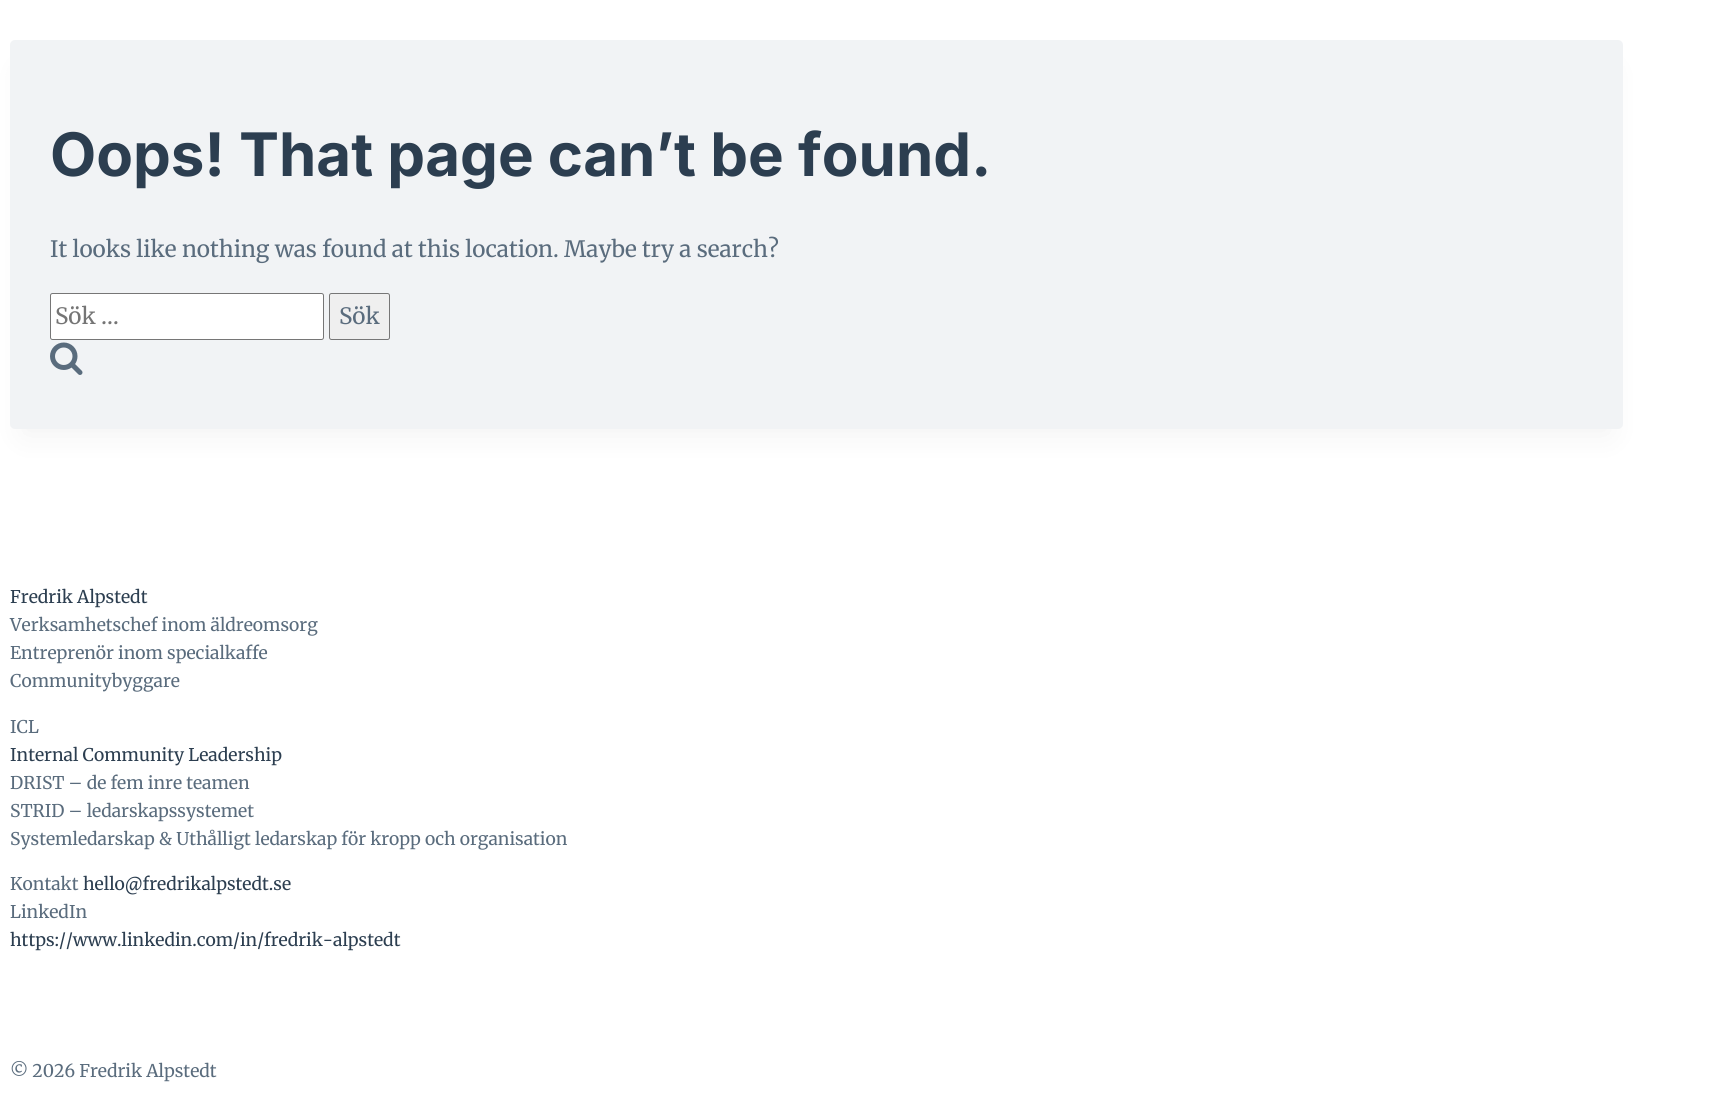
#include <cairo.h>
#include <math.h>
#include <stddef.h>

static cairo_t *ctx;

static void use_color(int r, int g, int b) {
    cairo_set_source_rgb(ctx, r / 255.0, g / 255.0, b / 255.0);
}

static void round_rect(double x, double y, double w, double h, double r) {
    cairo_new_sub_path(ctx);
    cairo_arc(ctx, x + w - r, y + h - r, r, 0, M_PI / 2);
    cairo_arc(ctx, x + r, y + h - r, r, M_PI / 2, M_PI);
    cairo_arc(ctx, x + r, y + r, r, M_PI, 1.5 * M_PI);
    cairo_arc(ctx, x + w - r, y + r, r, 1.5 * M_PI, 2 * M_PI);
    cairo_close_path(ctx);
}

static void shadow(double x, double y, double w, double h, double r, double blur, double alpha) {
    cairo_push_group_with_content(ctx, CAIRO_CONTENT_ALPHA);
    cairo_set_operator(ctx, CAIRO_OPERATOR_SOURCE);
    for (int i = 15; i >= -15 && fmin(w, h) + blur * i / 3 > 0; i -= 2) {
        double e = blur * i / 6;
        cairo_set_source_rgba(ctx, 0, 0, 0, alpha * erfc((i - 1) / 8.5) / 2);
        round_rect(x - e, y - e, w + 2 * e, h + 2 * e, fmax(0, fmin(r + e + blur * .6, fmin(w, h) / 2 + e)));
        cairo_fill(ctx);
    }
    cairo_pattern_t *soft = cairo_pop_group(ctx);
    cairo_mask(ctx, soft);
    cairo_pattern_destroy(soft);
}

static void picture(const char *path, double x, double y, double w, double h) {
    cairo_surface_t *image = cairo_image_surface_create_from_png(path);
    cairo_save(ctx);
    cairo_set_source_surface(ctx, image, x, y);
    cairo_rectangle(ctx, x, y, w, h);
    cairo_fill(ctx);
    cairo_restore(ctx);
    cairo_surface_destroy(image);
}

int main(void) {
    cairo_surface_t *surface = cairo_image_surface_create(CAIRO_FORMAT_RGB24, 1711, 1103);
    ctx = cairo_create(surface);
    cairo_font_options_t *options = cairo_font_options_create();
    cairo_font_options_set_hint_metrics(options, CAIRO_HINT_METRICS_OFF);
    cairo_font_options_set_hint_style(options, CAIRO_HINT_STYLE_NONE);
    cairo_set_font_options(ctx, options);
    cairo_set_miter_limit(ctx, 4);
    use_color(255, 255, 255);
    cairo_paint(ctx);
    use_color(0, 0, 0);
    shadow(23, 71, 1587, 364, 0, 15.5, 0.05);
    use_color(241, 243, 245);
    round_rect(10, 40, 1613, 389, 5);
    cairo_fill(ctx);
    cairo_select_font_face(ctx, "Inter", CAIRO_FONT_SLANT_NORMAL, CAIRO_FONT_WEIGHT_BOLD);
    cairo_set_font_size(ctx, 60);
    use_color(44, 62, 80);
    cairo_move_to(ctx, 50, 176);
    cairo_show_text(ctx, "Oops! That page can’t be found.");
    cairo_select_font_face(ctx, "Merriweather", CAIRO_FONT_SLANT_NORMAL, CAIRO_FONT_WEIGHT_NORMAL);
    cairo_set_font_size(ctx, 22.5);
    use_color(90, 108, 125);
    cairo_move_to(ctx, 50, 257);
    cairo_show_text(ctx, "It looks like nothing was found at this location. Maybe try a search?");
    use_color(255, 255, 255);
    round_rect(50.5, 293.5, 273, 46, 2);
    cairo_fill_preserve(ctx);
    use_color(118, 118, 118);
    cairo_set_line_width(ctx, 1);
    cairo_stroke(ctx);
    use_color(117, 117, 117);
    cairo_move_to(ctx, 55, 324);
    cairo_show_text(ctx, "Sök …");
    use_color(239, 239, 239);
    round_rect(329.5, 293.5, 60, 46, 2);
    cairo_fill_preserve(ctx);
    use_color(118, 118, 118);
    cairo_stroke(ctx);
    use_color(90, 108, 125);
    cairo_move_to(ctx, 339, 324);
    cairo_show_text(ctx, "Sök");
    picture("img1.png", 50, 342, 33, 33);
    cairo_set_font_size(ctx, 17.5);
    use_color(44, 62, 80);
    cairo_move_to(ctx, 10, 603);
    cairo_show_text(ctx, "Fredrik Alpstedt");
    use_color(90, 108, 125);
    cairo_move_to(ctx, 10, 631);
    cairo_show_text(ctx, "Verksamhetschef inom äldreomsorg");
    cairo_move_to(ctx, 10, 659);
    cairo_show_text(ctx, "Entreprenör inom specialkaffe");
    cairo_move_to(ctx, 10, 687);
    cairo_show_text(ctx, "Communitybyggare");
    cairo_move_to(ctx, 10, 733);
    cairo_show_text(ctx, "ICL");
    use_color(44, 62, 80);
    cairo_move_to(ctx, 10, 761);
    cairo_show_text(ctx, "Internal Community Leadership");
    use_color(90, 108, 125);
    cairo_move_to(ctx, 10, 789);
    cairo_show_text(ctx, "DRIST – de fem inre teamen");
    cairo_move_to(ctx, 10, 817);
    cairo_show_text(ctx, "STRID – ledarskapssystemet");
    cairo_move_to(ctx, 10, 845);
    cairo_show_text(ctx, "Systemledarskap & Uthålligt ledarskap för kropp och organisation");
    cairo_move_to(ctx, 10, 890);
    cairo_show_text(ctx, "Kontakt");
    use_color(44, 62, 80);
    cairo_move_to(ctx, 83, 890);
    cairo_show_text(ctx, "hello@fredrikalpstedt.se");
    use_color(90, 108, 125);
    cairo_move_to(ctx, 10, 918);
    cairo_show_text(ctx, "LinkedIn");
    use_color(44, 62, 80);
    cairo_move_to(ctx, 10, 946);
    cairo_show_text(ctx, "https://www.linkedin.com/in/fredrik-alpstedt");
    use_color(90, 108, 125);
    cairo_move_to(ctx, 10, 1077);
    cairo_show_text(ctx, "© 2026 Fredrik Alpstedt");
    cairo_surface_write_to_png(surface, "result.png");
    cairo_font_options_destroy(options);
    cairo_destroy(ctx);
    cairo_surface_destroy(surface);
    return 0;
}
